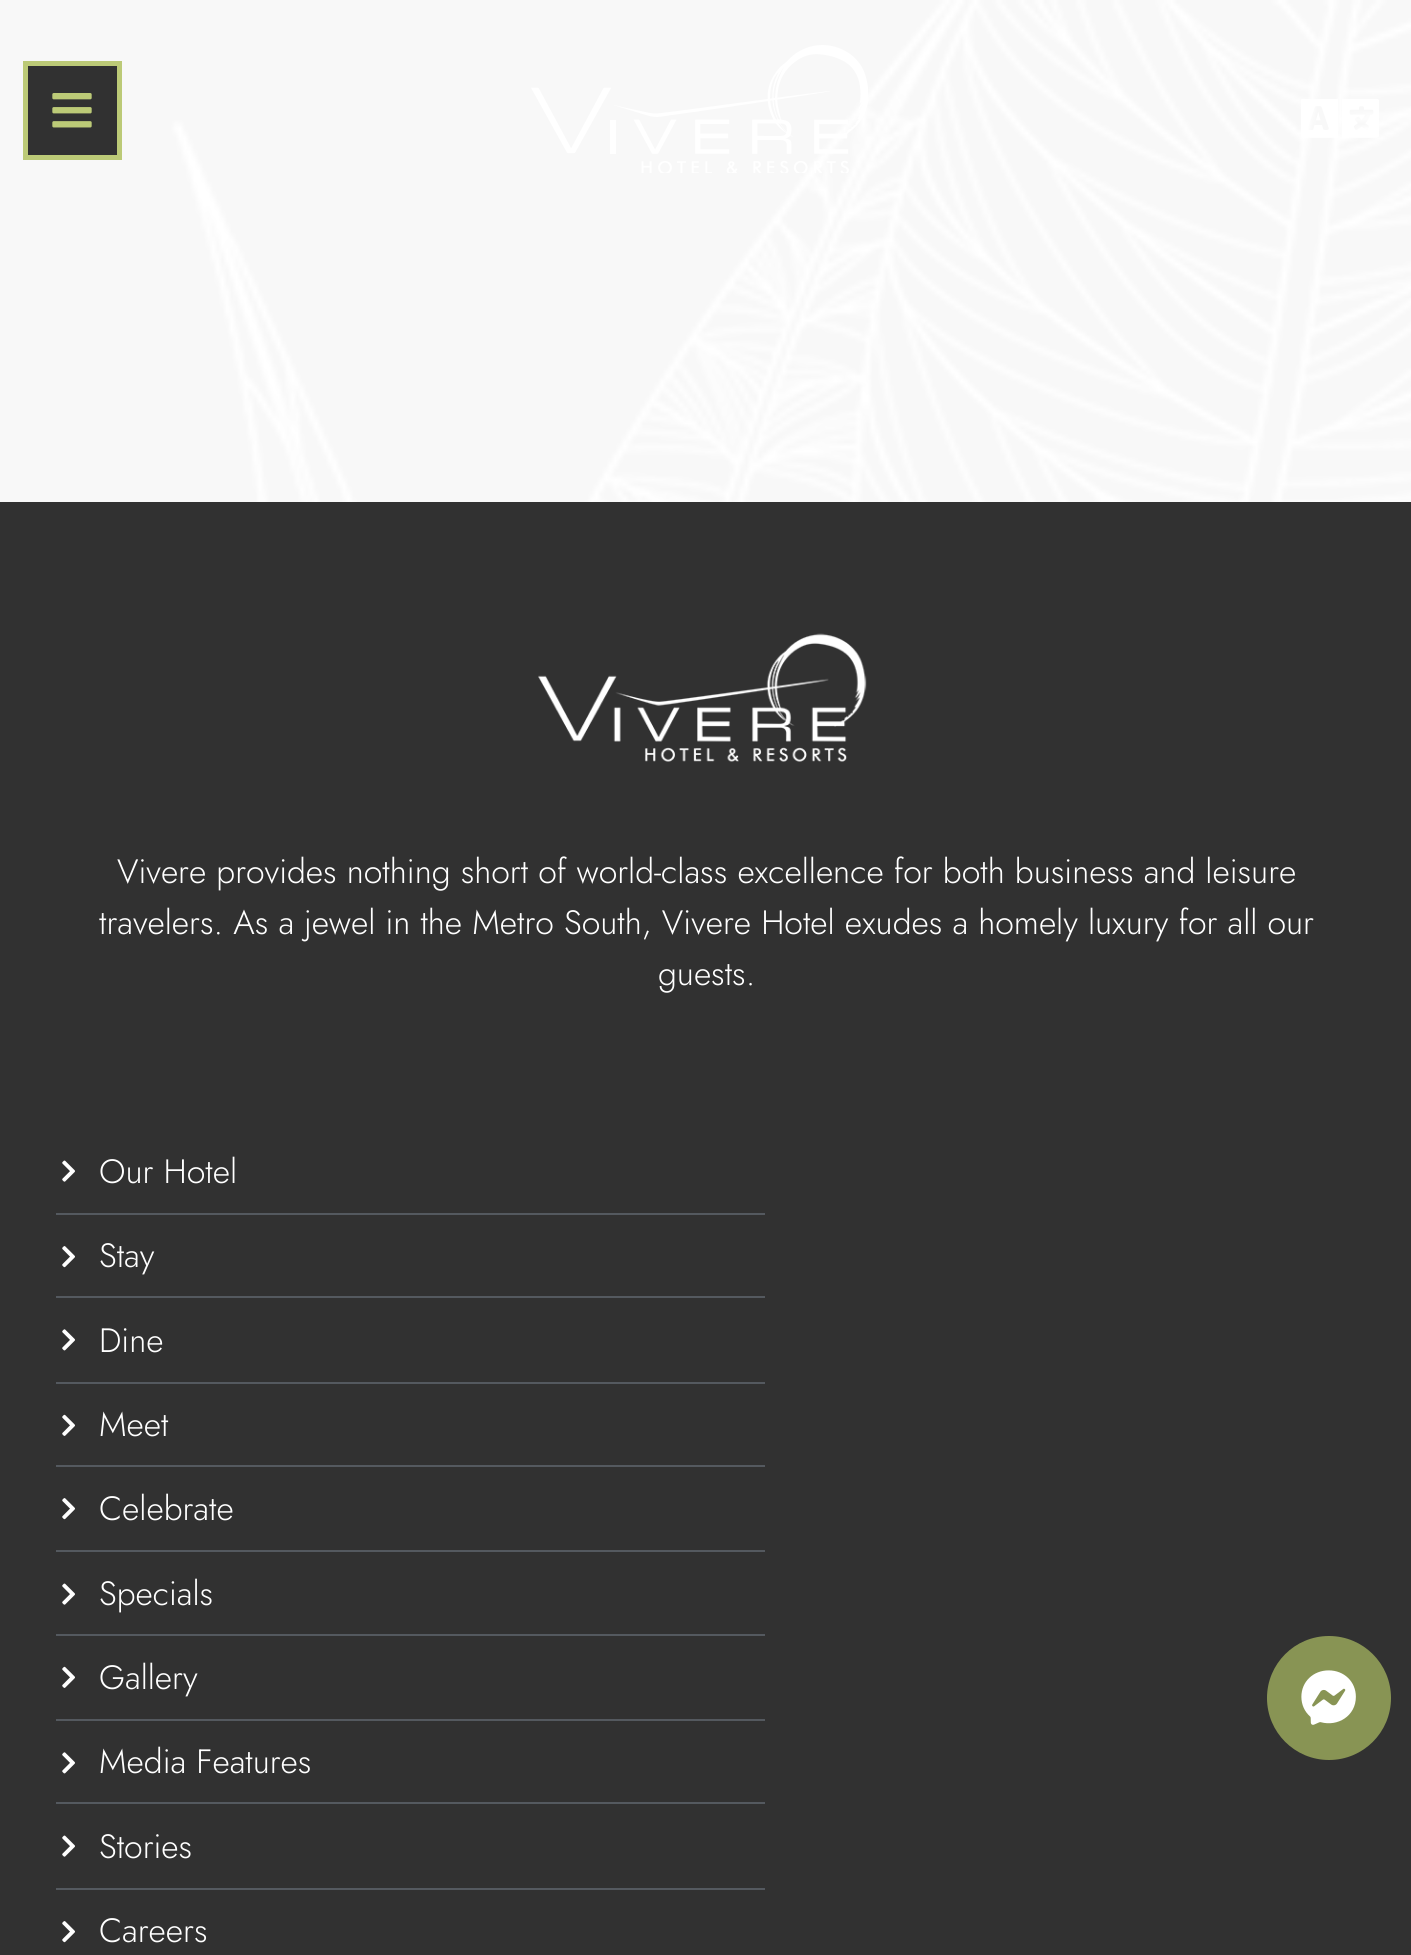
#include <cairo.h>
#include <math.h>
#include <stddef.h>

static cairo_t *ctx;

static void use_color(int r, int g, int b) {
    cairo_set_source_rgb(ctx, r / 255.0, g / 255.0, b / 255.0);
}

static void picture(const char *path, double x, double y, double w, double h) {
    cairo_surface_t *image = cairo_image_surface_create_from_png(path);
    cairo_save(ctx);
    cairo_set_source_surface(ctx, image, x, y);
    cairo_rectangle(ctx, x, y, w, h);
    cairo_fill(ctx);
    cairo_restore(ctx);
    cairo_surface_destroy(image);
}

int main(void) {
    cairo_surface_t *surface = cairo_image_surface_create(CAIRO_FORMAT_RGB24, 1411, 1955);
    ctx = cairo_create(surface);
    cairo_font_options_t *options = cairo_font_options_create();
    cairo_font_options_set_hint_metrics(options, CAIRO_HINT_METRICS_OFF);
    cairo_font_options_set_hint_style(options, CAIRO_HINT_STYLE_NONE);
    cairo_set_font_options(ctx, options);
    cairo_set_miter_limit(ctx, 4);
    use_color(248, 248, 248);
    cairo_paint(ctx);
    picture("img1.png", 138, 0, 1273, 502);
    use_color(49, 49, 49);
    cairo_rectangle(ctx, 25.5, 63.5, 94, 94);
    cairo_fill_preserve(ctx);
    use_color(188, 202, 119);
    cairo_set_line_width(ctx, 5);
    cairo_stroke(ctx);
    picture("img2.png", 52, 93, 40, 35);
    picture("img3.png", 531, 45, 337, 128);
    picture("img4.png", 1301, 99, 78, 39);
    use_color(49, 49, 49);
    cairo_rectangle(ctx, 0, 502, 1411, 1453);
    cairo_fill(ctx);
    picture("img5.png", 538, 633, 329, 129);
    cairo_select_font_face(ctx, "Jost Light", CAIRO_FONT_SLANT_NORMAL, CAIRO_FONT_WEIGHT_NORMAL);
    cairo_set_font_size(ctx, 33.75);
    use_color(255, 255, 255);
    cairo_move_to(ctx, 117, 883);
    cairo_show_text(ctx, "Vivere provides nothing short of world-class excellence for both business and leisure");
    cairo_move_to(ctx, 99, 934);
    cairo_show_text(ctx, "travelers. As a jewel in the Metro South, Vivere Hotel exudes a homely luxury for all our");
    cairo_move_to(ctx, 658, 985);
    cairo_show_text(ctx, "guests.");
    picture("img6.png", 62, 1160, 13, 22);
    cairo_move_to(ctx, 99, 1183);
    cairo_show_text(ctx, "Our Hotel");
    use_color(84, 89, 95);
    cairo_rectangle(ctx, 56, 1213, 709, 2);
    cairo_fill(ctx);
    picture("img7.png", 62, 1246, 13, 22);
    use_color(255, 255, 255);
    cairo_move_to(ctx, 99, 1267);
    cairo_show_text(ctx, "Stay");
    use_color(84, 89, 95);
    cairo_rectangle(ctx, 56, 1296, 709, 2);
    cairo_fill(ctx);
    picture("img8.png", 62, 1329, 13, 22);
    use_color(255, 255, 255);
    cairo_move_to(ctx, 99, 1352);
    cairo_show_text(ctx, "Dine");
    use_color(84, 89, 95);
    cairo_rectangle(ctx, 56, 1382, 709, 2);
    cairo_fill(ctx);
    picture("img9.png", 62, 1414, 13, 22);
    use_color(255, 255, 255);
    cairo_move_to(ctx, 99, 1436);
    cairo_show_text(ctx, "Meet");
    use_color(84, 89, 95);
    cairo_rectangle(ctx, 56, 1465, 709, 2);
    cairo_fill(ctx);
    picture("img7.png", 62, 1498, 13, 22);
    use_color(255, 255, 255);
    cairo_move_to(ctx, 99, 1520);
    cairo_show_text(ctx, "Celebrate");
    use_color(84, 89, 95);
    cairo_rectangle(ctx, 56, 1550, 709, 2);
    cairo_fill(ctx);
    picture("img6.png", 62, 1583, 13, 22);
    use_color(255, 255, 255);
    cairo_move_to(ctx, 99, 1605);
    cairo_show_text(ctx, "Specials");
    use_color(84, 89, 95);
    cairo_rectangle(ctx, 56, 1634, 709, 2);
    cairo_fill(ctx);
    picture("img9.png", 62, 1666, 13, 22);
    use_color(255, 255, 255);
    cairo_move_to(ctx, 99, 1689);
    cairo_show_text(ctx, "Gallery");
    use_color(84, 89, 95);
    cairo_rectangle(ctx, 56, 1719, 709, 2);
    cairo_fill(ctx);
    picture("img8.png", 62, 1752, 13, 22);
    use_color(255, 255, 255);
    cairo_move_to(ctx, 99, 1773);
    cairo_show_text(ctx, "Media Features");
    use_color(84, 89, 95);
    cairo_rectangle(ctx, 56, 1802, 709, 2);
    cairo_fill(ctx);
    picture("img6.png", 62, 1835, 13, 22);
    use_color(255, 255, 255);
    cairo_move_to(ctx, 99, 1858);
    cairo_show_text(ctx, "Stories");
    use_color(84, 89, 95);
    cairo_rectangle(ctx, 56, 1888, 709, 2);
    cairo_fill(ctx);
    picture("img7.png", 62, 1921, 13, 22);
    use_color(255, 255, 255);
    cairo_move_to(ctx, 99, 1942);
    cairo_show_text(ctx, "Careers");
    use_color(136, 148, 84);
    cairo_new_path(ctx);
    cairo_arc(ctx, 1329, 1698, 62, 0, 2 * M_PI);
    cairo_fill(ctx);
    picture("img10.png", 1301, 1670, 55, 55);
    cairo_surface_write_to_png(surface, "result.png");
    cairo_font_options_destroy(options);
    cairo_destroy(ctx);
    cairo_surface_destroy(surface);
    return 0;
}
